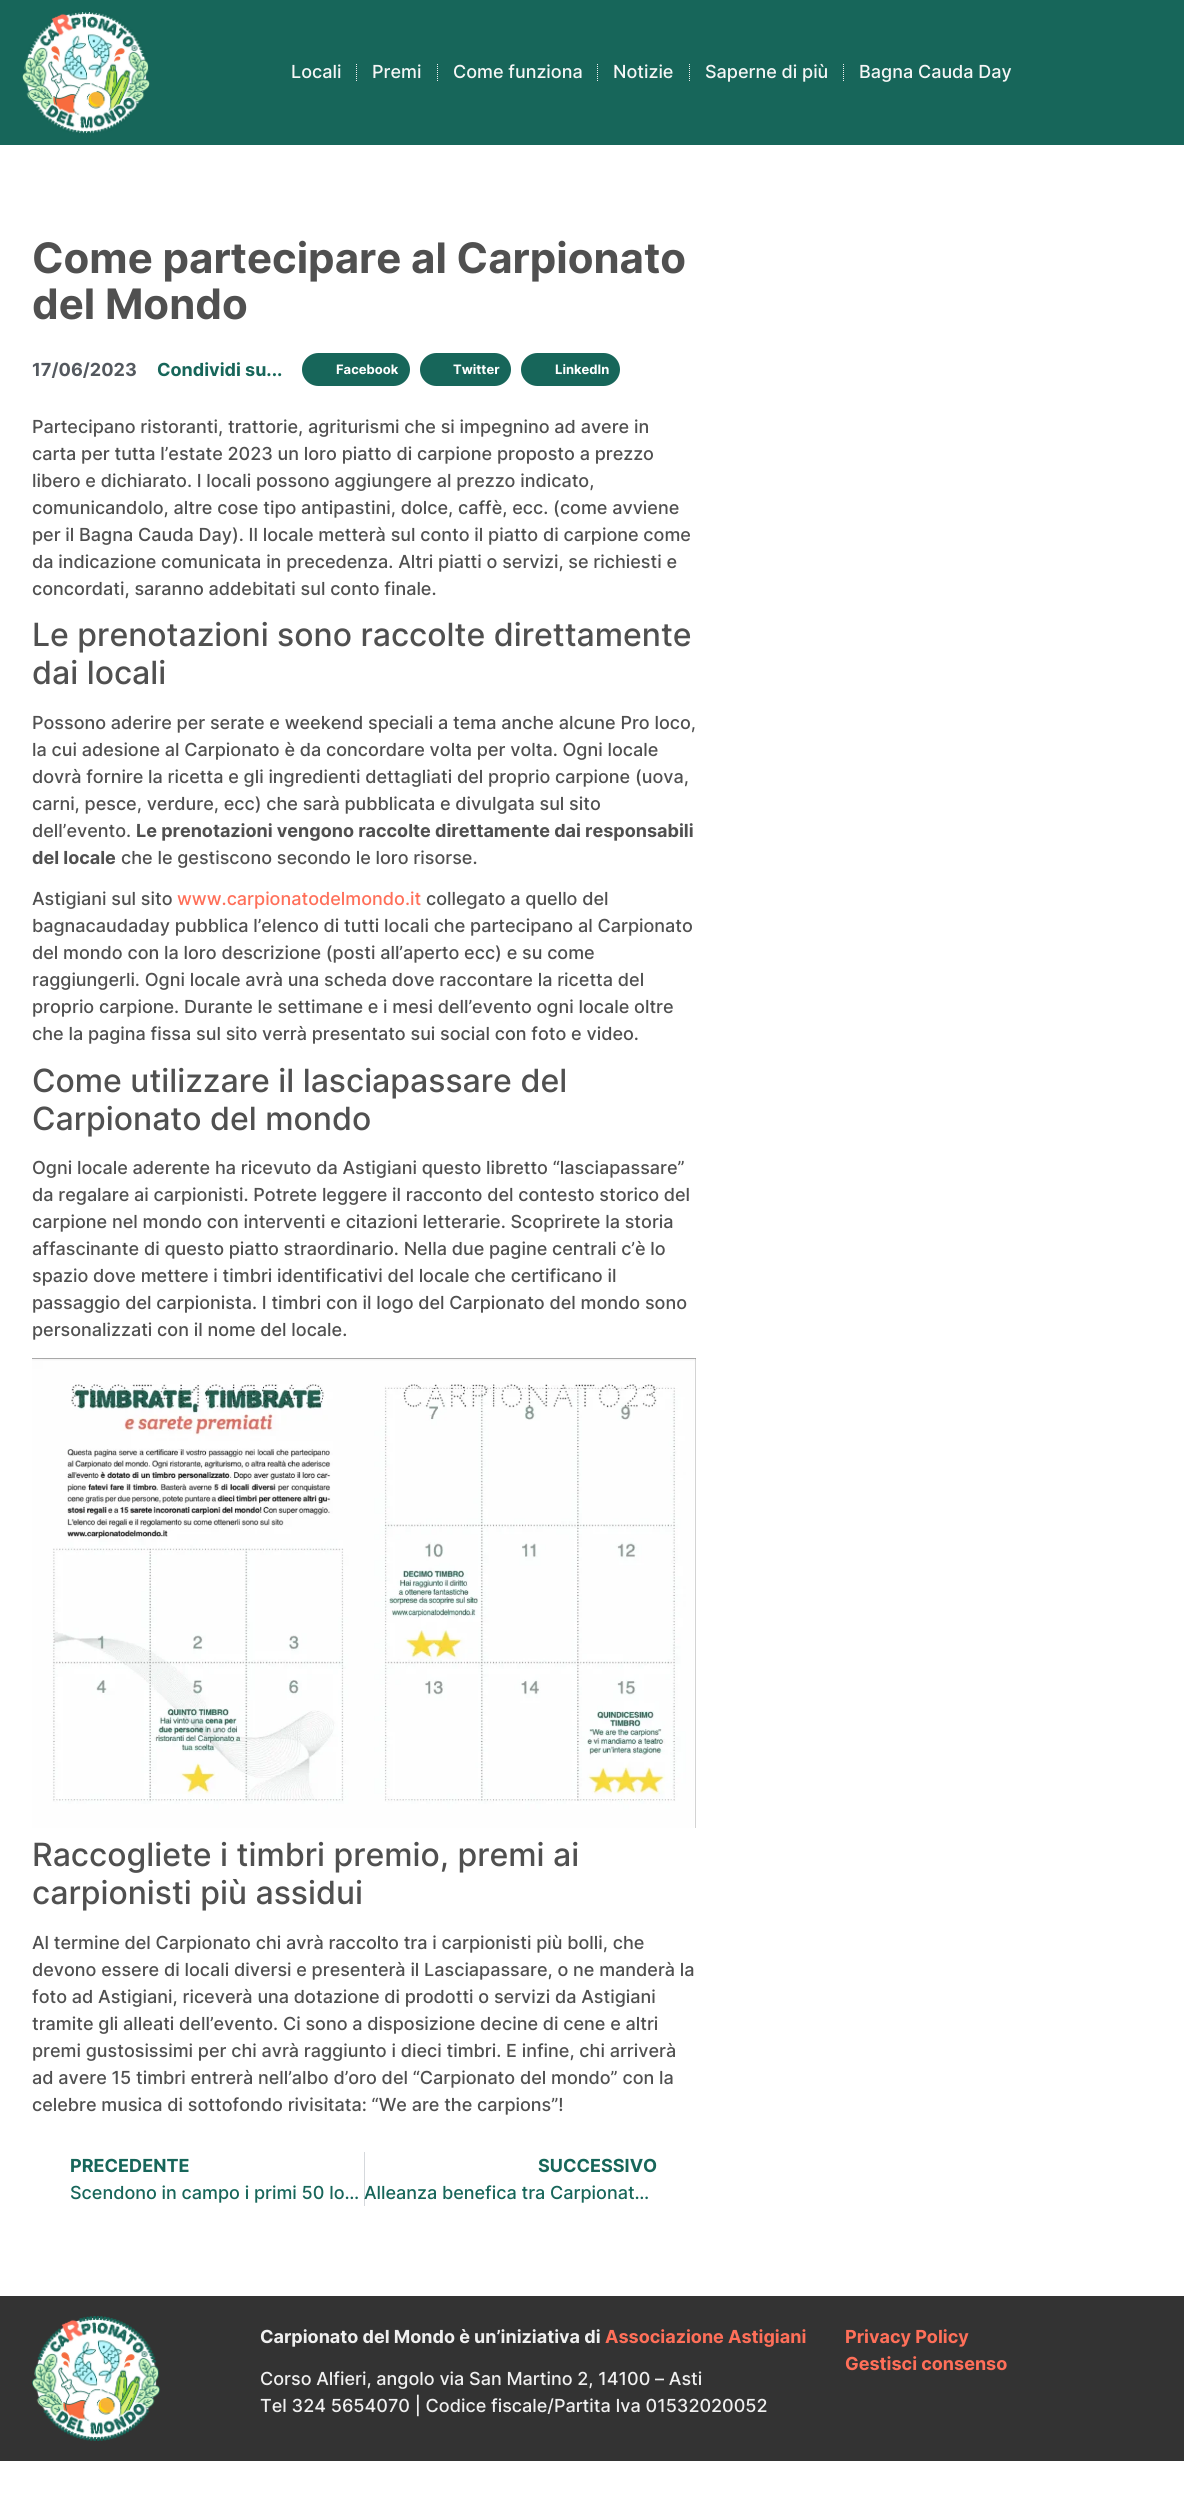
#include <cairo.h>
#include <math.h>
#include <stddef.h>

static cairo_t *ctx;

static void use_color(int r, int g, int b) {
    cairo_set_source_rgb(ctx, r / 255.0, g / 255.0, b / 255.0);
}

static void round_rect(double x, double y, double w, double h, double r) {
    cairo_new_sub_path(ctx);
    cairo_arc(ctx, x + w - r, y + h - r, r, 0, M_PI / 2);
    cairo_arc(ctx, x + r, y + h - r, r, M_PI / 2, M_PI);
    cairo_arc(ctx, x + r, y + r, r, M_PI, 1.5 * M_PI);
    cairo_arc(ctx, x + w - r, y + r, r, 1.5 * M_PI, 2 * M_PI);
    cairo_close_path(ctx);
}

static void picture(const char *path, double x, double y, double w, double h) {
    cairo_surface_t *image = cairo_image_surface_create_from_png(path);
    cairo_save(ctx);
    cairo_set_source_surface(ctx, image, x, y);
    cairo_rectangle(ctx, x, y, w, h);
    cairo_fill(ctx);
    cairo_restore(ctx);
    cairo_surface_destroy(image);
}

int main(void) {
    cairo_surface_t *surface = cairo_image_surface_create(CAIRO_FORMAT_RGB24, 1184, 2520);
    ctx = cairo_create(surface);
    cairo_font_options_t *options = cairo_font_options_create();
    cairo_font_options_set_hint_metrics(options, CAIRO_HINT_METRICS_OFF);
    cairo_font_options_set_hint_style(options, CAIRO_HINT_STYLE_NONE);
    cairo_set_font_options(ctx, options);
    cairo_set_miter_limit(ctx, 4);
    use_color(255, 255, 255);
    cairo_paint(ctx);
    use_color(23, 102, 90);
    cairo_rectangle(ctx, 0, 0, 1184, 145);
    cairo_fill(ctx);
    picture("img1.png", 22, 10, 128, 125);
    cairo_select_font_face(ctx, "Inter Medium", CAIRO_FONT_SLANT_NORMAL, CAIRO_FONT_WEIGHT_NORMAL);
    cairo_set_font_size(ctx, 18);
    use_color(246, 246, 246);
    cairo_move_to(ctx, 291, 78);
    cairo_show_text(ctx, "Locali");
    cairo_new_path(ctx);
    cairo_move_to(ctx, 356.5, 64);
    cairo_line_to(ctx, 356.5, 81);
    use_color(240, 240, 240);
    cairo_set_line_width(ctx, 1);
    cairo_set_dash(ctx, (double[]){1, 1}, 2, 0);
    cairo_stroke(ctx);
    use_color(246, 246, 246);
    cairo_move_to(ctx, 372, 78);
    cairo_show_text(ctx, "Premi");
    cairo_new_path(ctx);
    cairo_move_to(ctx, 437.5, 64);
    cairo_line_to(ctx, 437.5, 81);
    use_color(240, 240, 240);
    cairo_stroke(ctx);
    use_color(246, 246, 246);
    cairo_move_to(ctx, 453, 78);
    cairo_show_text(ctx, "Come funziona");
    cairo_new_path(ctx);
    cairo_move_to(ctx, 597.5, 64);
    cairo_line_to(ctx, 597.5, 81);
    use_color(240, 240, 240);
    cairo_stroke(ctx);
    use_color(246, 246, 246);
    cairo_move_to(ctx, 613, 78);
    cairo_show_text(ctx, "Notizie");
    cairo_new_path(ctx);
    cairo_move_to(ctx, 689.5, 64);
    cairo_line_to(ctx, 689.5, 81);
    use_color(240, 240, 240);
    cairo_stroke(ctx);
    use_color(246, 246, 246);
    cairo_move_to(ctx, 705, 78);
    cairo_show_text(ctx, "Saperne di più");
    cairo_new_path(ctx);
    cairo_move_to(ctx, 843.5, 64);
    cairo_line_to(ctx, 843.5, 81);
    use_color(240, 240, 240);
    cairo_stroke(ctx);
    use_color(246, 246, 246);
    cairo_move_to(ctx, 859, 78);
    cairo_show_text(ctx, "Bagna Cauda Day");
    cairo_select_font_face(ctx, "Inter", CAIRO_FONT_SLANT_NORMAL, CAIRO_FONT_WEIGHT_BOLD);
    cairo_set_font_size(ctx, 42);
    use_color(80, 80, 80);
    cairo_move_to(ctx, 32, 273);
    cairo_show_text(ctx, "Come partecipare al Carpionato");
    cairo_move_to(ctx, 32, 319);
    cairo_show_text(ctx, "del Mondo");
    cairo_set_font_size(ctx, 18);
    use_color(84, 89, 95);
    cairo_move_to(ctx, 32, 376);
    cairo_show_text(ctx, "17/06/2023");
    use_color(23, 102, 90);
    cairo_move_to(ctx, 157, 376);
    cairo_show_text(ctx, "Condividi su...");
    round_rect(302, 353, 108, 33, 16.5);
    cairo_fill(ctx);
    cairo_set_font_size(ctx, 13);
    use_color(255, 255, 255);
    cairo_move_to(ctx, 336, 374);
    cairo_show_text(ctx, "Facebook");
    use_color(23, 102, 90);
    round_rect(420, 353, 91, 33, 16.5);
    cairo_fill(ctx);
    use_color(255, 255, 255);
    cairo_move_to(ctx, 453, 374);
    cairo_show_text(ctx, "Twitter");
    use_color(23, 102, 90);
    round_rect(521, 353, 99, 33, 16.5);
    cairo_fill(ctx);
    use_color(255, 255, 255);
    cairo_move_to(ctx, 555, 374);
    cairo_show_text(ctx, "LinkedIn");
    cairo_select_font_face(ctx, "Inter Medium", CAIRO_FONT_SLANT_NORMAL, CAIRO_FONT_WEIGHT_NORMAL);
    cairo_set_font_size(ctx, 18);
    use_color(80, 80, 80);
    cairo_move_to(ctx, 32, 433);
    cairo_show_text(ctx, "Partecipano ristoranti, trattorie, agriturismi che si impegnino ad avere in");
    cairo_move_to(ctx, 32, 460);
    cairo_show_text(ctx, "carta per tutta l’estate 2023 un loro piatto di carpione proposto a prezzo");
    cairo_move_to(ctx, 32, 487);
    cairo_show_text(ctx, "libero e dichiarato. I locali possono aggiungere al prezzo indicato,");
    cairo_move_to(ctx, 32, 514);
    cairo_show_text(ctx, "comunicandolo, altre cose tipo antipastini, dolce, caffè, ecc. (come avviene");
    cairo_move_to(ctx, 32, 541);
    cairo_show_text(ctx, "per il Bagna Cauda Day). Il locale metterà sul conto il piatto di carpione come");
    cairo_move_to(ctx, 32, 568);
    cairo_show_text(ctx, "da indicazione comunicata in precedenza. Altri piatti o servizi, se richiesti e");
    cairo_move_to(ctx, 32, 595);
    cairo_show_text(ctx, "concordati, saranno addebitati sul conto finale.");
    cairo_set_font_size(ctx, 32);
    cairo_move_to(ctx, 32, 646);
    cairo_show_text(ctx, "Le prenotazioni sono raccolte direttamente");
    cairo_move_to(ctx, 32, 684);
    cairo_show_text(ctx, "dai locali");
    cairo_set_font_size(ctx, 18);
    cairo_move_to(ctx, 32, 729);
    cairo_show_text(ctx, "Possono aderire per serate e weekend speciali a tema anche alcune Pro loco,");
    cairo_move_to(ctx, 32, 756);
    cairo_show_text(ctx, "la cui adesione al Carpionato è da concordare volta per volta. Ogni locale");
    cairo_move_to(ctx, 32, 783);
    cairo_show_text(ctx, "dovrà fornire la ricetta e gli ingredienti dettagliati del proprio carpione (uova,");
    cairo_move_to(ctx, 32, 810);
    cairo_show_text(ctx, "carni, pesce, verdure, ecc) che sarà pubblicata e divulgata sul sito");
    cairo_move_to(ctx, 32, 837);
    cairo_show_text(ctx, "dell’evento.");
    cairo_select_font_face(ctx, "Inter", CAIRO_FONT_SLANT_NORMAL, CAIRO_FONT_WEIGHT_BOLD);
    cairo_move_to(ctx, 136, 837);
    cairo_show_text(ctx, "Le prenotazioni vengono raccolte direttamente dai responsabili");
    cairo_move_to(ctx, 32, 864);
    cairo_show_text(ctx, "del locale");
    cairo_select_font_face(ctx, "Inter Medium", CAIRO_FONT_SLANT_NORMAL, CAIRO_FONT_WEIGHT_NORMAL);
    cairo_move_to(ctx, 121, 864);
    cairo_show_text(ctx, "che le gestiscono secondo le loro risorse.");
    cairo_move_to(ctx, 32, 905);
    cairo_show_text(ctx, "Astigiani sul sito");
    use_color(255, 111, 89);
    cairo_move_to(ctx, 177, 905);
    cairo_show_text(ctx, "www.carpionatodelmondo.it");
    use_color(80, 80, 80);
    cairo_move_to(ctx, 426, 905);
    cairo_show_text(ctx, "collegato a quello del");
    cairo_move_to(ctx, 32, 932);
    cairo_show_text(ctx, "bagnacaudaday pubblica l’elenco di tutti locali che partecipano al Carpionato");
    cairo_move_to(ctx, 32, 959);
    cairo_show_text(ctx, "del mondo con la loro descrizione (posti all’aperto ecc) e su come");
    cairo_move_to(ctx, 32, 986);
    cairo_show_text(ctx, "raggiungerli. Ogni locale avrà una scheda dove raccontare la ricetta del");
    cairo_move_to(ctx, 32, 1013);
    cairo_show_text(ctx, "proprio carpione. Durante le settimane e i mesi dell’evento ogni locale oltre");
    cairo_move_to(ctx, 32, 1040);
    cairo_show_text(ctx, "che la pagina fissa sul sito verrà presentato sui social con foto e video.");
    cairo_set_font_size(ctx, 32);
    cairo_move_to(ctx, 32, 1092);
    cairo_show_text(ctx, "Come utilizzare il lasciapassare del");
    cairo_move_to(ctx, 32, 1130);
    cairo_show_text(ctx, "Carpionato del mondo");
    cairo_set_font_size(ctx, 18);
    cairo_move_to(ctx, 32, 1174);
    cairo_show_text(ctx, "Ogni locale aderente ha ricevuto da Astigiani questo libretto “lasciapassare”");
    cairo_move_to(ctx, 32, 1201);
    cairo_show_text(ctx, "da regalare ai carpionisti. Potrete leggere il racconto del contesto storico del");
    cairo_move_to(ctx, 32, 1228);
    cairo_show_text(ctx, "carpione nel mondo con interventi e citazioni letterarie. Scoprirete la storia");
    cairo_move_to(ctx, 32, 1255);
    cairo_show_text(ctx, "affascinante di questo piatto straordinario. Nella due pagine centrali c’è lo");
    cairo_move_to(ctx, 32, 1282);
    cairo_show_text(ctx, "spazio dove mettere i timbri identificativi del locale che certificano il");
    cairo_move_to(ctx, 32, 1309);
    cairo_show_text(ctx, "passaggio del carpionista. I timbri con il logo del Carpionato del mondo sono");
    cairo_move_to(ctx, 32, 1336);
    cairo_show_text(ctx, "personalizzati con il nome del locale.");
    picture("img2.png", 32, 1358, 664, 470);
    cairo_set_font_size(ctx, 32);
    cairo_move_to(ctx, 32, 1866);
    cairo_show_text(ctx, "Raccogliete i timbri premio, premi ai");
    cairo_move_to(ctx, 32, 1904);
    cairo_show_text(ctx, "carpionisti più assidui");
    cairo_set_font_size(ctx, 18);
    cairo_move_to(ctx, 32, 1949);
    cairo_show_text(ctx, "Al termine del Carpionato chi avrà raccolto tra i carpionisti più bolli, che");
    cairo_move_to(ctx, 32, 1976);
    cairo_show_text(ctx, "devono essere di locali diversi e presenterà il Lasciapassare, o ne manderà la");
    cairo_move_to(ctx, 32, 2003);
    cairo_show_text(ctx, "foto ad Astigiani, riceverà una dotazione di prodotti o servizi da Astigiani");
    cairo_move_to(ctx, 32, 2030);
    cairo_show_text(ctx, "tramite gli alleati dell’evento. Ci sono a disposizione decine di cene e altri");
    cairo_move_to(ctx, 32, 2057);
    cairo_show_text(ctx, "premi gustosissimi per chi avrà raggiunto i dieci timbri. E infine, chi arriverà");
    cairo_move_to(ctx, 32, 2084);
    cairo_show_text(ctx, "ad avere 15 timbri entrerà nell’albo d’oro del “Carpionato del mondo” con la");
    cairo_move_to(ctx, 32, 2111);
    cairo_show_text(ctx, "celebre musica di sottofondo rivisitata: “We are the carpions”!");
    use_color(213, 216, 220);
    cairo_rectangle(ctx, 364, 2152, 1, 54);
    cairo_fill(ctx);
    cairo_select_font_face(ctx, "Inter", CAIRO_FONT_SLANT_NORMAL, CAIRO_FONT_WEIGHT_BOLD);
    use_color(23, 102, 90);
    cairo_move_to(ctx, 70, 2172);
    cairo_show_text(ctx, "PRECEDENTE");
    cairo_select_font_face(ctx, "Inter Medium", CAIRO_FONT_SLANT_NORMAL, CAIRO_FONT_WEIGHT_NORMAL);
    cairo_move_to(ctx, 70, 2199);
    cairo_show_text(ctx, "Scendono in campo i primi 50 lo… Alleanza benefica tra Carpionat…");
    cairo_select_font_face(ctx, "Inter", CAIRO_FONT_SLANT_NORMAL, CAIRO_FONT_WEIGHT_BOLD);
    cairo_move_to(ctx, 538, 2172);
    cairo_show_text(ctx, "SUCCESSIVO");
    use_color(51, 51, 51);
    cairo_rectangle(ctx, 0, 2296, 1184, 165);
    cairo_fill(ctx);
    picture("img3.png", 32, 2316, 128, 125);
    use_color(240, 240, 240);
    cairo_move_to(ctx, 260, 2343);
    cairo_show_text(ctx, "Carpionato del Mondo è un’iniziativa di");
    use_color(255, 111, 89);
    cairo_move_to(ctx, 605, 2343);
    cairo_show_text(ctx, "Associazione Astigiani");
    cairo_select_font_face(ctx, "Inter Medium", CAIRO_FONT_SLANT_NORMAL, CAIRO_FONT_WEIGHT_NORMAL);
    use_color(240, 240, 240);
    cairo_move_to(ctx, 260, 2385);
    cairo_show_text(ctx, "Corso Alfieri, angolo via San Martino 2, 14100 – Asti");
    cairo_move_to(ctx, 260, 2412);
    cairo_show_text(ctx, "Tel 324 5654070 | Codice fiscale/Partita Iva 01532020052");
    cairo_select_font_face(ctx, "Inter", CAIRO_FONT_SLANT_NORMAL, CAIRO_FONT_WEIGHT_BOLD);
    use_color(255, 111, 89);
    cairo_move_to(ctx, 845, 2343);
    cairo_show_text(ctx, "Privacy Policy");
    cairo_move_to(ctx, 845, 2370);
    cairo_show_text(ctx, "Gestisci consenso");
    cairo_surface_write_to_png(surface, "result.png");
    cairo_font_options_destroy(options);
    cairo_destroy(ctx);
    cairo_surface_destroy(surface);
    return 0;
}
